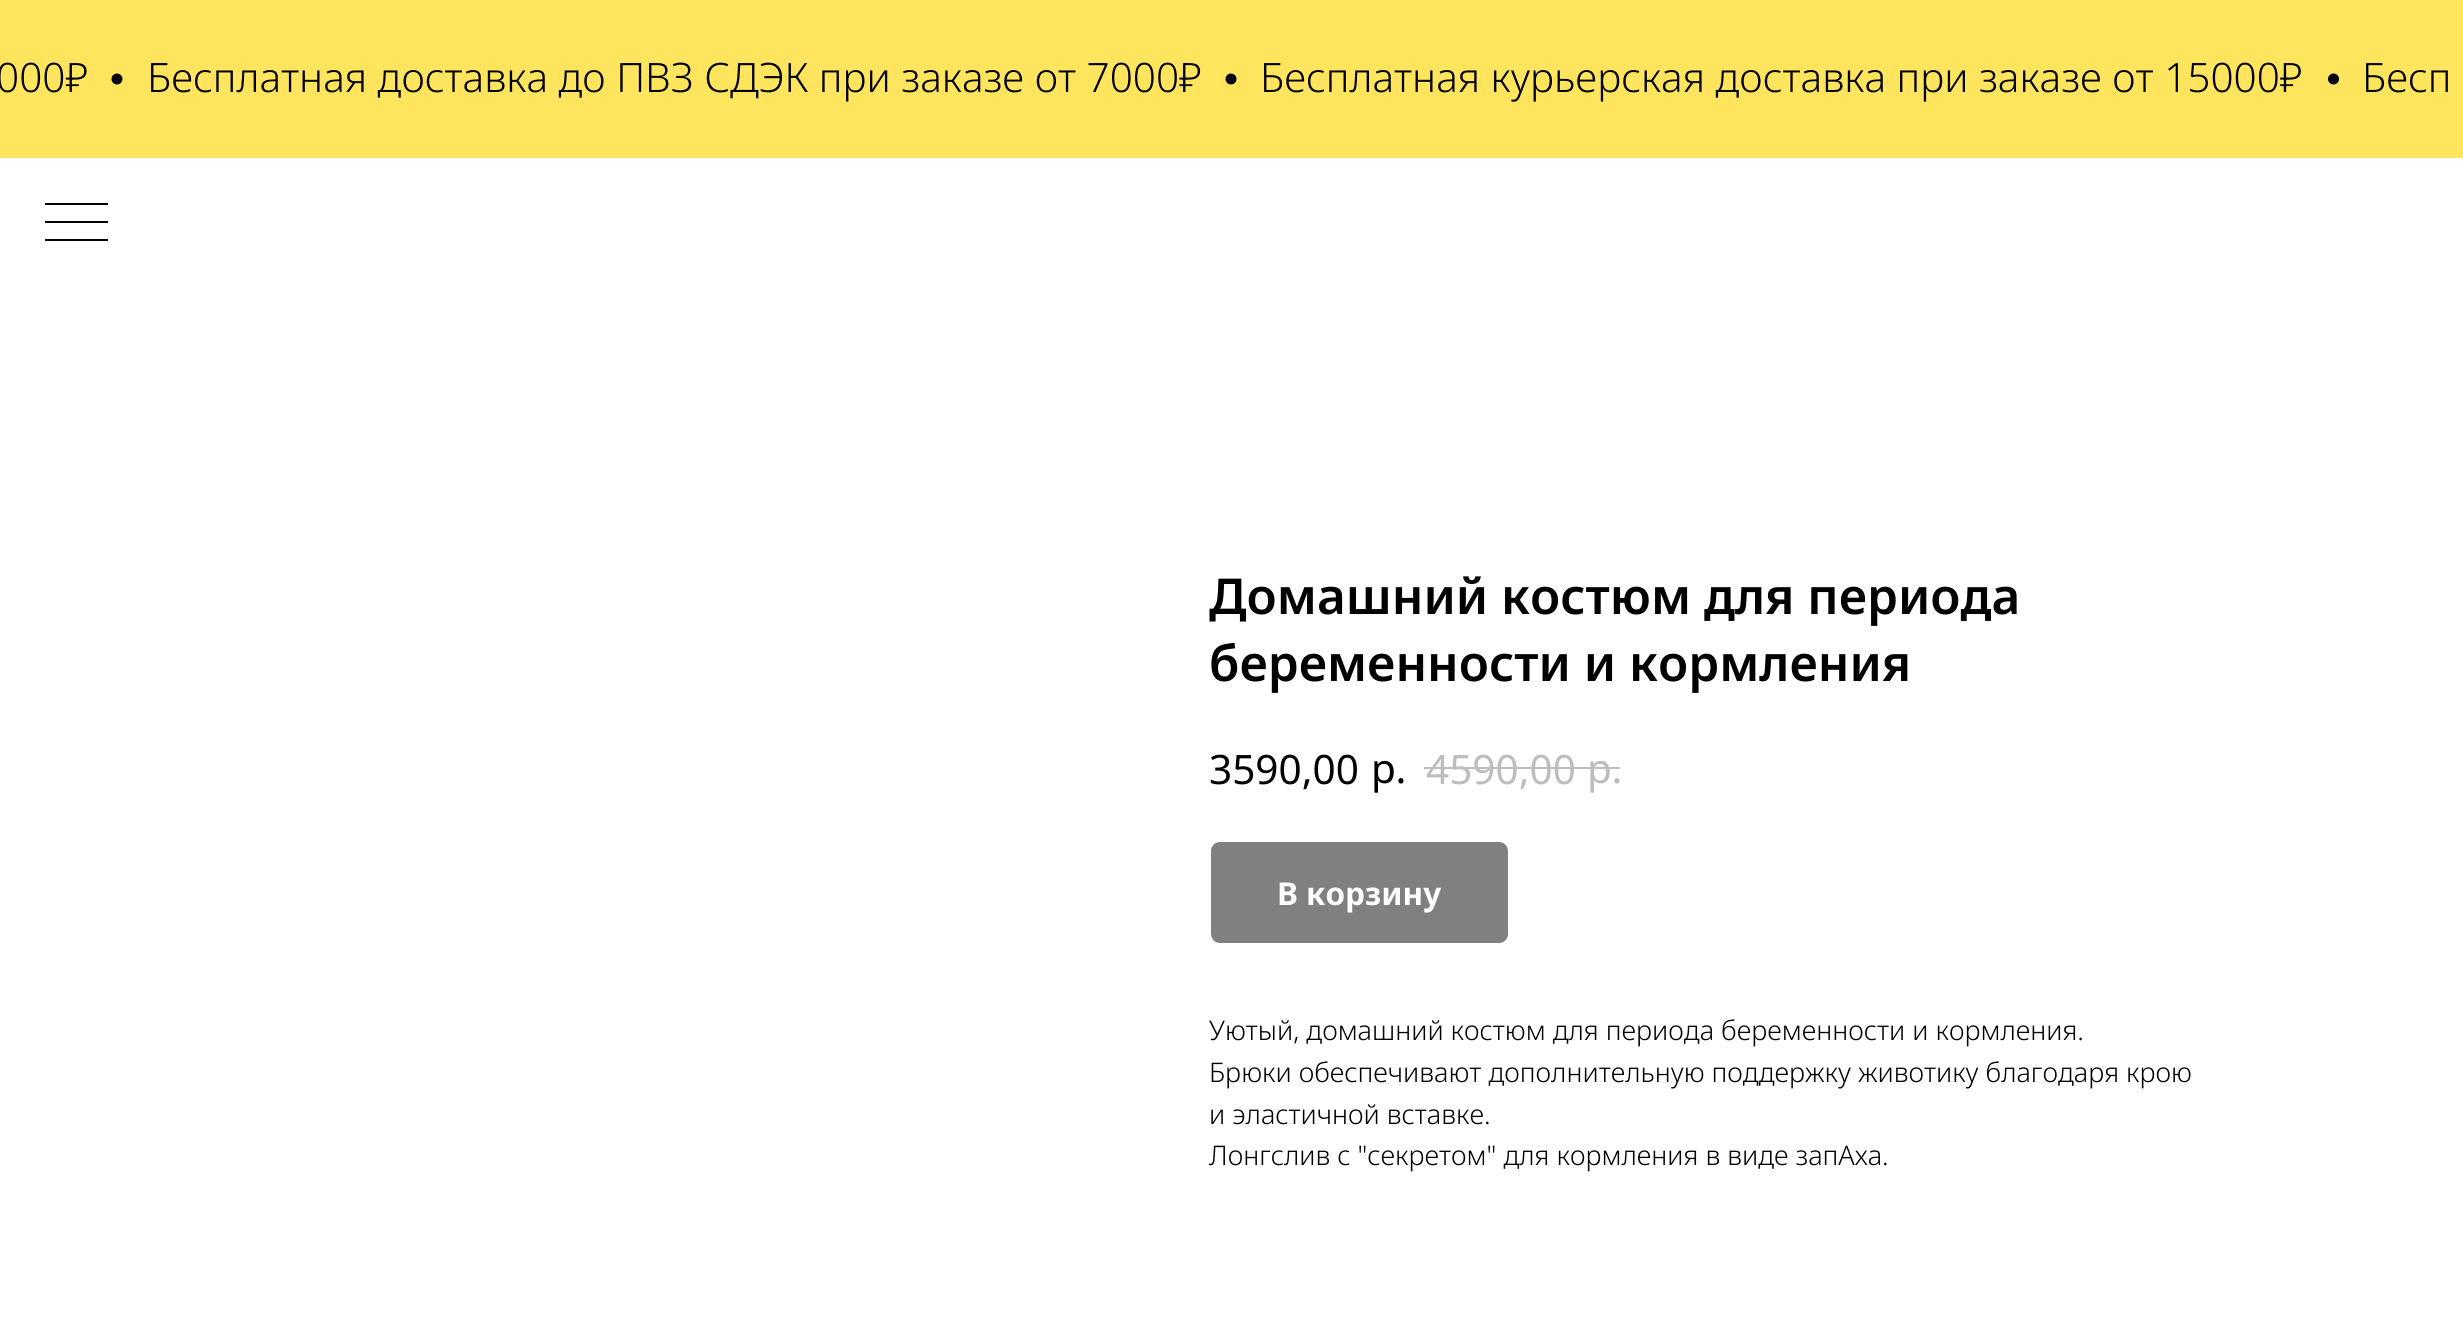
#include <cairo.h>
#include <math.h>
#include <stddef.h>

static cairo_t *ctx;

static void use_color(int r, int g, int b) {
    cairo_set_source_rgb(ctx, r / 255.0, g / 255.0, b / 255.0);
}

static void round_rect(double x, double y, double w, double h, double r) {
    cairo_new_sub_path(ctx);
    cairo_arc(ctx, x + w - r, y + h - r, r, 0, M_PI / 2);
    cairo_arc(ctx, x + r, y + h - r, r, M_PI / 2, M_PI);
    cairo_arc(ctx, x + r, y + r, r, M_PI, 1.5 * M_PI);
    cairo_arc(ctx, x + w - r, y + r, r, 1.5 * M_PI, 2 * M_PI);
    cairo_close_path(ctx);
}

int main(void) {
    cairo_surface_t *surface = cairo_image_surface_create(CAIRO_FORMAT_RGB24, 2463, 1325);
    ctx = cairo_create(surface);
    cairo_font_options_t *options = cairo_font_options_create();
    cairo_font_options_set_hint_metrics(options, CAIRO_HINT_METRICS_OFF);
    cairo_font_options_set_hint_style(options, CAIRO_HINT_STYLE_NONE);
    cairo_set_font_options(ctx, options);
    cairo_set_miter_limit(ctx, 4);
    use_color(255, 255, 255);
    cairo_paint(ctx);
    use_color(255, 229, 94);
    cairo_rectangle(ctx, 0, 0, 2463, 158);
    cairo_fill(ctx);
    cairo_select_font_face(ctx, "Noto Sans Light", CAIRO_FONT_SLANT_NORMAL, CAIRO_FONT_WEIGHT_NORMAL);
    cairo_set_font_size(ctx, 40.5);
    use_color(0, 0, 0);
    cairo_move_to(ctx, -4, 92);
    cairo_show_text(ctx, "000₽");
    cairo_new_path(ctx);
    cairo_arc(ctx, 117, 79, 5.5, 0, 2 * M_PI);
    cairo_fill(ctx);
    cairo_move_to(ctx, 147, 92);
    cairo_show_text(ctx, "Бесплатная доставка до ПВЗ СДЭК при заказе от 7000₽");
    cairo_new_path(ctx);
    cairo_arc(ctx, 1231, 79, 5.5, 0, 2 * M_PI);
    cairo_fill(ctx);
    cairo_move_to(ctx, 1260, 92);
    cairo_show_text(ctx, "Бесплатная курьерская доставка при заказе от 15000₽");
    cairo_new_path(ctx);
    cairo_arc(ctx, 2333.5, 79, 5.5, 0, 2 * M_PI);
    cairo_fill(ctx);
    cairo_move_to(ctx, 2362, 92);
    cairo_show_text(ctx, "Бесп");
    cairo_rectangle(ctx, 45, 203, 63, 2);
    cairo_fill(ctx);
    cairo_rectangle(ctx, 45, 221, 63, 2);
    cairo_fill(ctx);
    cairo_rectangle(ctx, 45, 239, 63, 2);
    cairo_fill(ctx);
    cairo_select_font_face(ctx, "Noto Sans SemiBold", CAIRO_FONT_SLANT_NORMAL, CAIRO_FONT_WEIGHT_NORMAL);
    cairo_set_font_size(ctx, 49.5);
    cairo_move_to(ctx, 1209, 614);
    cairo_show_text(ctx, "Домашний костюм для периода");
    cairo_move_to(ctx, 1209, 681);
    cairo_show_text(ctx, "беременности и кормления");
    cairo_select_font_face(ctx, "Noto Sans", CAIRO_FONT_SLANT_NORMAL, CAIRO_FONT_WEIGHT_NORMAL);
    cairo_set_font_size(ctx, 40.5);
    cairo_move_to(ctx, 1209, 784);
    cairo_show_text(ctx, "3590,00");
    cairo_move_to(ctx, 1371, 783);
    cairo_show_text(ctx, "р.");
    use_color(189, 189, 189);
    cairo_move_to(ctx, 1426, 784);
    cairo_show_text(ctx, "4590,00");
    cairo_move_to(ctx, 1587, 783);
    cairo_show_text(ctx, "р.");
    cairo_rectangle(ctx, 1424, 767, 196, 2);
    cairo_fill(ctx);
    use_color(128, 128, 128);
    round_rect(1211, 842, 297, 101, 9);
    cairo_fill(ctx);
    cairo_select_font_face(ctx, "Noto Sans", CAIRO_FONT_SLANT_NORMAL, CAIRO_FONT_WEIGHT_BOLD);
    cairo_set_font_size(ctx, 31.5);
    use_color(255, 255, 255);
    cairo_move_to(ctx, 1277, 905);
    cairo_show_text(ctx, "В корзину");
    cairo_select_font_face(ctx, "Noto Sans Light", CAIRO_FONT_SLANT_NORMAL, CAIRO_FONT_WEIGHT_NORMAL);
    cairo_set_font_size(ctx, 27);
    use_color(0, 0, 0);
    cairo_move_to(ctx, 1209, 1040);
    cairo_show_text(ctx, "Уютый, домашний костюм для периода беременности и кормления.");
    cairo_move_to(ctx, 1209, 1082);
    cairo_show_text(ctx, "Брюки обеспечивают дополнительную поддержку животику благодаря крою");
    cairo_move_to(ctx, 1209, 1124);
    cairo_show_text(ctx, "и эластичной вставке.");
    cairo_move_to(ctx, 1209, 1165);
    cairo_show_text(ctx, "Лонгслив с \"секретом\" для кормления в виде запАха.");
    cairo_surface_write_to_png(surface, "result.png");
    cairo_font_options_destroy(options);
    cairo_destroy(ctx);
    cairo_surface_destroy(surface);
    return 0;
}
